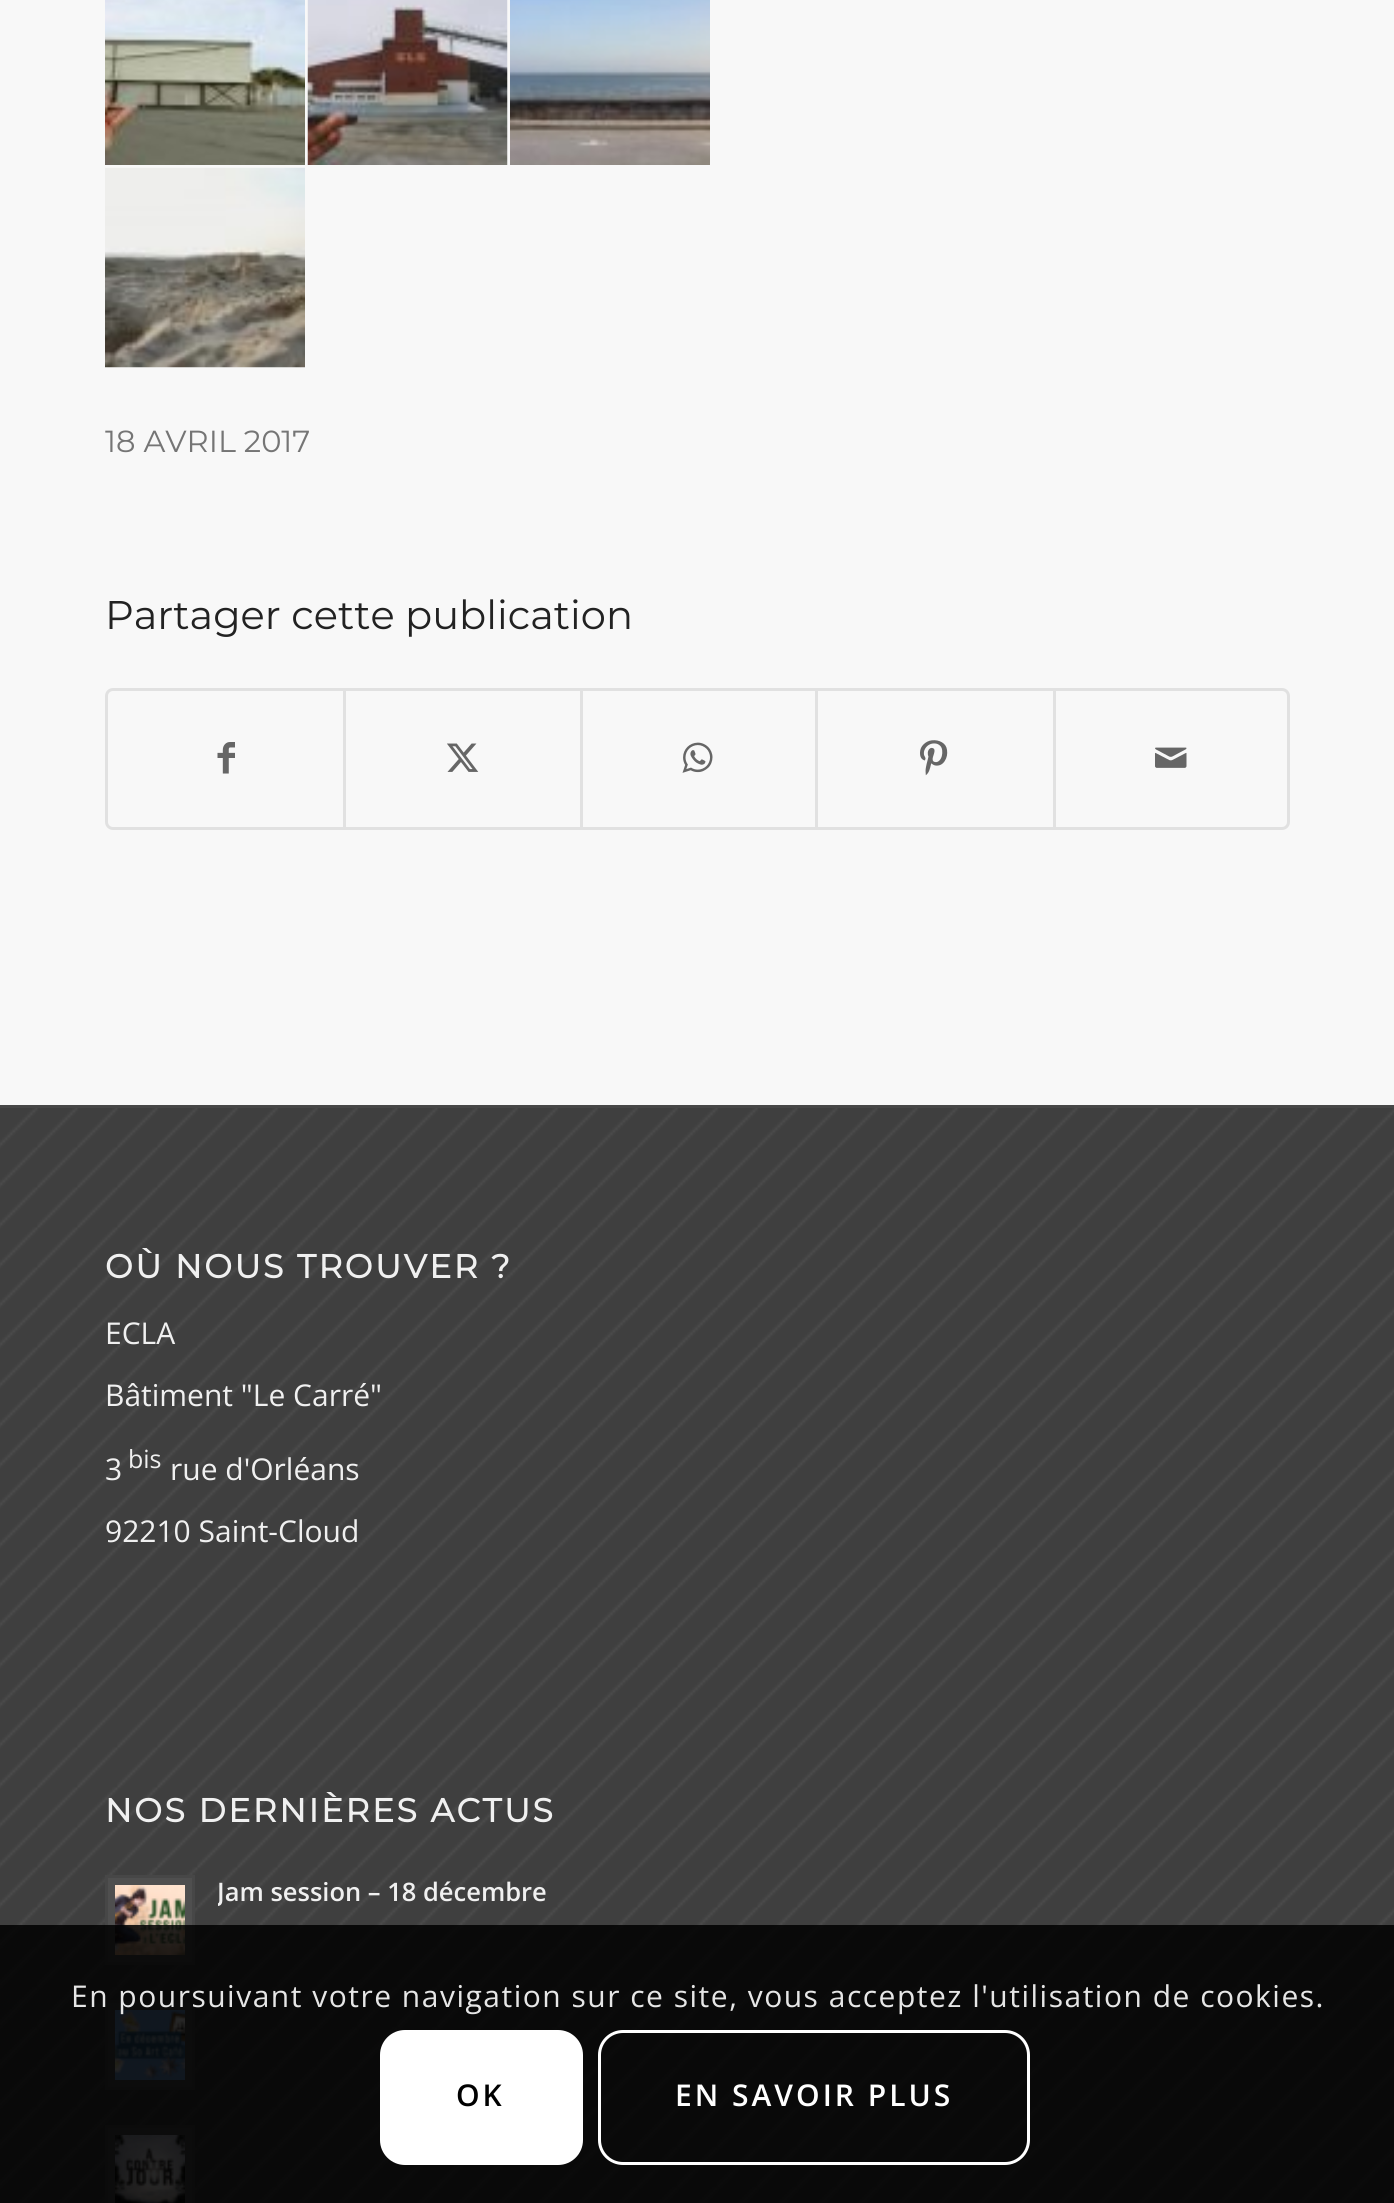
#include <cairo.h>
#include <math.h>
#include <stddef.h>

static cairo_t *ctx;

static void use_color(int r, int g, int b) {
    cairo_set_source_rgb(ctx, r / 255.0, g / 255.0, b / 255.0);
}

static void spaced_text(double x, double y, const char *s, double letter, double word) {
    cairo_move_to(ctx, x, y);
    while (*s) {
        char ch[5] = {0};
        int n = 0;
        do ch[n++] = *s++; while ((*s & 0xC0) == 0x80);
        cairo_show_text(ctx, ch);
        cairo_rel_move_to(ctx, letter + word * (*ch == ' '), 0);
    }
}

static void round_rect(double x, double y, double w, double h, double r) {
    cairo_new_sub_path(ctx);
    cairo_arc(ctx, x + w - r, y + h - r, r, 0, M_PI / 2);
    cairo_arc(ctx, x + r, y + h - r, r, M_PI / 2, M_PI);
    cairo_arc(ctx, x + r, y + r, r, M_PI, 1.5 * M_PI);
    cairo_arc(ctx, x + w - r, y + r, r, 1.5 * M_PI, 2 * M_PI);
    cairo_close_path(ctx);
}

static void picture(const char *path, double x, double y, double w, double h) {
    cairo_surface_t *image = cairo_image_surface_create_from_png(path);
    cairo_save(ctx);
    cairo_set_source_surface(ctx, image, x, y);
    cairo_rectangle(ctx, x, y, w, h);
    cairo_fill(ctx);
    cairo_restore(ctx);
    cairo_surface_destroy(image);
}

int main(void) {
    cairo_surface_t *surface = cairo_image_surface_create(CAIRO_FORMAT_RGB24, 1394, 2203);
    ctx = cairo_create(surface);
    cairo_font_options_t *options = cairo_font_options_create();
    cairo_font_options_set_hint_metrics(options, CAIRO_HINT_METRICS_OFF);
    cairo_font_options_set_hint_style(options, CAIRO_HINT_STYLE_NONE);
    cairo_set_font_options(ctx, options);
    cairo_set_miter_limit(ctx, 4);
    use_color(248, 248, 248);
    cairo_paint(ctx);
    picture("img1.png", 105, 0, 200, 165);
    picture("img2.png", 307, 0, 201, 165);
    picture("img3.png", 510, 0, 200, 165);
    picture("img4.png", 105, 167, 200, 201);
    cairo_select_font_face(ctx, "Montserrat Thin", CAIRO_FONT_SLANT_NORMAL, CAIRO_FONT_WEIGHT_NORMAL);
    cairo_set_font_size(ctx, 30.5);
    use_color(117, 117, 117);
    cairo_move_to(ctx, 105, 452);
    cairo_show_text(ctx, "18 AVRIL 2017");
    cairo_set_font_size(ctx, 40);
    use_color(34, 34, 34);
    cairo_move_to(ctx, 105, 629);
    cairo_show_text(ctx, "Partager cette publication");
    round_rect(106.5, 689.5, 1182, 139, 6.5);
    use_color(225, 225, 225);
    cairo_set_line_width(ctx, 3);
    cairo_stroke(ctx);
    picture("img5.png", 217, 742, 18, 32);
    cairo_rectangle(ctx, 343, 690, 3, 138);
    cairo_fill(ctx);
    picture("img6.png", 447, 743, 32, 29);
    cairo_rectangle(ctx, 580, 690, 3, 138);
    cairo_fill(ctx);
    picture("img7.png", 682, 742, 31, 31);
    cairo_rectangle(ctx, 815, 690, 3, 138);
    cairo_fill(ctx);
    picture("img8.png", 920, 740, 28, 36);
    cairo_rectangle(ctx, 1053, 690, 3, 138);
    cairo_fill(ctx);
    picture("img9.png", 1155, 747, 32, 21);
    use_color(63, 63, 63);
    cairo_rectangle(ctx, 0, 1108, 1394, 1095);
    cairo_fill(ctx);
    picture("img10.png", 0, 1108, 1394, 1095);
    use_color(71, 71, 71);
    cairo_rectangle(ctx, 0, 1105, 1394, 3);
    cairo_fill(ctx);
    cairo_select_font_face(ctx, "Montserrat", CAIRO_FONT_SLANT_NORMAL, CAIRO_FONT_WEIGHT_BOLD);
    cairo_set_font_size(ctx, 33);
    use_color(240, 240, 240);
    spaced_text(105, 1278, "OÙ NOUS TROUVER ?", 2.5, 0);
    cairo_select_font_face(ctx, "Open Sans", CAIRO_FONT_SLANT_NORMAL, CAIRO_FONT_WEIGHT_NORMAL);
    cairo_set_font_size(ctx, 30);
    cairo_move_to(ctx, 105, 1344);
    cairo_show_text(ctx, "ECLA");
    cairo_move_to(ctx, 105, 1406);
    cairo_show_text(ctx, "Bâtiment \"Le Carré\"");
    cairo_move_to(ctx, 105, 1480);
    cairo_show_text(ctx, "3");
    cairo_set_font_size(ctx, 25);
    cairo_move_to(ctx, 128, 1468);
    cairo_show_text(ctx, "bis");
    cairo_set_font_size(ctx, 30);
    cairo_move_to(ctx, 170, 1480);
    cairo_show_text(ctx, "rue d'Orléans");
    cairo_move_to(ctx, 105, 1542);
    cairo_show_text(ctx, "92210 Saint-Cloud");
    cairo_select_font_face(ctx, "Montserrat", CAIRO_FONT_SLANT_NORMAL, CAIRO_FONT_WEIGHT_BOLD);
    cairo_set_font_size(ctx, 33);
    spaced_text(105, 1822, "NOS DERNIÈRES ACTUS", 2.5, 0);
    use_color(79, 79, 79);
    cairo_rectangle(ctx, 106.5, 1876.5, 87, 87);
    cairo_fill_preserve(ctx);
    use_color(71, 71, 71);
    cairo_stroke(ctx);
    picture("img11.png", 115, 1885, 70, 70);
    cairo_save(ctx);
    cairo_rectangle(ctx, 218, 1870, 1072, 45);
    cairo_clip(ctx);
    cairo_select_font_face(ctx, "Open Sans SemiBold", CAIRO_FONT_SLANT_NORMAL, CAIRO_FONT_WEIGHT_NORMAL);
    cairo_set_font_size(ctx, 25.5);
    use_color(240, 240, 240);
    cairo_move_to(ctx, 217, 1901);
    cairo_show_text(ctx, "Jam session – 18 décembre");
    cairo_restore(ctx);
    use_color(79, 79, 79);
    cairo_rectangle(ctx, 106.5, 2001.5, 87, 87);
    cairo_fill_preserve(ctx);
    use_color(71, 71, 71);
    cairo_stroke(ctx);
    picture("img12.png", 115, 2010, 70, 70);
    use_color(79, 79, 79);
    cairo_rectangle(ctx, 106.5, 2126.5, 87, 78);
    cairo_fill_preserve(ctx);
    use_color(71, 71, 71);
    cairo_stroke(ctx);
    picture("img13.png", 115, 2135, 70, 68);
    cairo_set_source_rgba(ctx, 0, 0, 0, 0.85);
    cairo_rectangle(ctx, 0, 1925, 1394, 278);
    cairo_fill(ctx);
    cairo_select_font_face(ctx, "Open Sans", CAIRO_FONT_SLANT_NORMAL, CAIRO_FONT_WEIGHT_NORMAL);
    cairo_set_font_size(ctx, 30);
    use_color(230, 230, 230);
    spaced_text(71, 2007, "En poursuivant votre navigation sur ce site, vous acceptez l'utilisation de cookies.", 1.5, 0);
    use_color(255, 255, 255);
    round_rect(380, 2030, 203, 135, 25);
    cairo_fill(ctx);
    cairo_select_font_face(ctx, "Open Sans SemiBold", CAIRO_FONT_SLANT_NORMAL, CAIRO_FONT_WEIGHT_NORMAL);
    use_color(0, 0, 0);
    spaced_text(456, 2106, "OK", 3, 0);
    round_rect(599.5, 2031.5, 429, 132, 23.5);
    use_color(255, 255, 255);
    cairo_stroke(ctx);
    spaced_text(675, 2106, "EN SAVOIR PLUS", 3, 0);
    cairo_surface_write_to_png(surface, "result.png");
    cairo_font_options_destroy(options);
    cairo_destroy(ctx);
    cairo_surface_destroy(surface);
    return 0;
}
